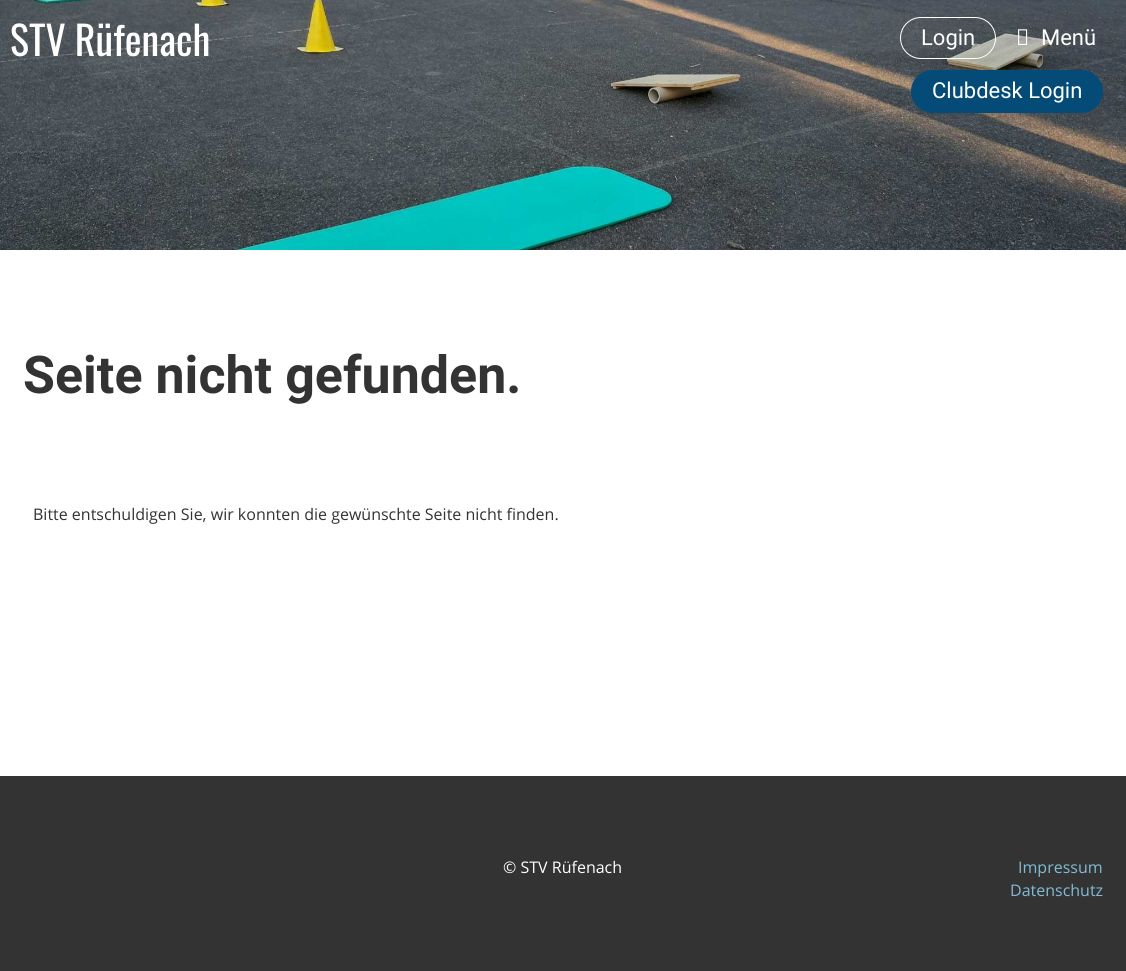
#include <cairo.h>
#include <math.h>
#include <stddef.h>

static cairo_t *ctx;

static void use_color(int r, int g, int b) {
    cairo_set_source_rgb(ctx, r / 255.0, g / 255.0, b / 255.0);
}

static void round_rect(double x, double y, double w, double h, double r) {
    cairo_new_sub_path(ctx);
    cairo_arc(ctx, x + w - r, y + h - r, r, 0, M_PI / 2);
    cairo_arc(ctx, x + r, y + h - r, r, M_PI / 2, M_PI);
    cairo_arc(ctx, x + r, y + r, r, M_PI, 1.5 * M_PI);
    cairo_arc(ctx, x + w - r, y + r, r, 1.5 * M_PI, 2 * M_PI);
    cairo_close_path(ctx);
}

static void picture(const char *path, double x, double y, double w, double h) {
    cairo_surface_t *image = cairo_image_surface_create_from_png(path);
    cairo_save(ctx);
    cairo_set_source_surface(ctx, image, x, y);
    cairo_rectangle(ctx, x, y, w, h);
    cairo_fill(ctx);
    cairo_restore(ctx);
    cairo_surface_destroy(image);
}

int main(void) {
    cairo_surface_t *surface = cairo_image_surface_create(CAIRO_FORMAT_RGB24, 1126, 971);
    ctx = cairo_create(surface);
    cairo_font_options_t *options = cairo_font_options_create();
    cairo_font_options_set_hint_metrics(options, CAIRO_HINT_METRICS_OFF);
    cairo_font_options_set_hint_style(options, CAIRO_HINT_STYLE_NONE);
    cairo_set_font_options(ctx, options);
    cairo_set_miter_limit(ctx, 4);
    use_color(255, 255, 255);
    cairo_paint(ctx);
    picture("img2.png", 0, 0, 1126, 250);
    cairo_select_font_face(ctx, "Oswald", CAIRO_FONT_SLANT_NORMAL, CAIRO_FONT_WEIGHT_NORMAL);
    cairo_set_font_size(ctx, 40);
    use_color(255, 255, 255);
    cairo_move_to(ctx, 10, 56);
    cairo_show_text(ctx, "STV Rüfenach");
    round_rect(900.5, 17.5, 95, 41, 20.5);
    cairo_set_line_width(ctx, 1);
    cairo_stroke(ctx);
    cairo_select_font_face(ctx, "Roboto", CAIRO_FONT_SLANT_NORMAL, CAIRO_FONT_WEIGHT_NORMAL);
    cairo_set_font_size(ctx, 22);
    cairo_move_to(ctx, 921, 45);
    cairo_show_text(ctx, "Login");
    picture("img1.png", 1018, 29, 10, 16);
    cairo_move_to(ctx, 1041, 45);
    cairo_show_text(ctx, "Menü");
    use_color(4, 76, 119);
    round_rect(911.5, 70.5, 191, 42, 21);
    cairo_fill_preserve(ctx);
    cairo_stroke(ctx);
    use_color(255, 255, 255);
    cairo_move_to(ctx, 932, 98);
    cairo_show_text(ctx, "Clubdesk Login");
    cairo_select_font_face(ctx, "Roboto", CAIRO_FONT_SLANT_NORMAL, CAIRO_FONT_WEIGHT_BOLD);
    cairo_set_font_size(ctx, 52);
    use_color(51, 51, 51);
    cairo_move_to(ctx, 23, 393);
    cairo_show_text(ctx, "Seite nicht gefunden.");
    cairo_select_font_face(ctx, "Open Sans", CAIRO_FONT_SLANT_NORMAL, CAIRO_FONT_WEIGHT_NORMAL);
    cairo_set_font_size(ctx, 16);
    cairo_move_to(ctx, 33, 520);
    cairo_show_text(ctx, "Bitte entschuldigen Sie, wir konnten die gewünschte Seite nicht finden.");
    cairo_rectangle(ctx, 0, 776, 1126, 195);
    cairo_fill(ctx);
    use_color(255, 255, 255);
    cairo_move_to(ctx, 503, 873);
    cairo_show_text(ctx, "© STV Rüfenach");
    use_color(129, 187, 213);
    cairo_move_to(ctx, 1018, 873);
    cairo_show_text(ctx, "Impressum");
    cairo_move_to(ctx, 1010, 896);
    cairo_show_text(ctx, "Datenschutz");
    cairo_surface_write_to_png(surface, "result.png");
    cairo_font_options_destroy(options);
    cairo_destroy(ctx);
    cairo_surface_destroy(surface);
    return 0;
}
